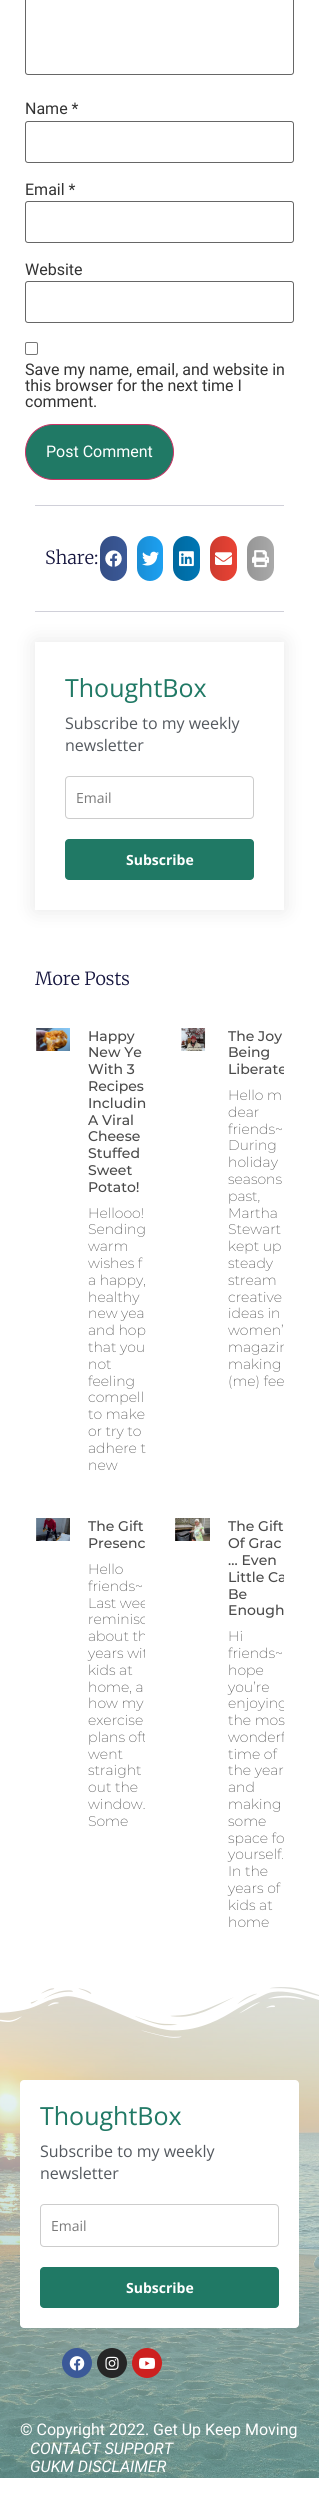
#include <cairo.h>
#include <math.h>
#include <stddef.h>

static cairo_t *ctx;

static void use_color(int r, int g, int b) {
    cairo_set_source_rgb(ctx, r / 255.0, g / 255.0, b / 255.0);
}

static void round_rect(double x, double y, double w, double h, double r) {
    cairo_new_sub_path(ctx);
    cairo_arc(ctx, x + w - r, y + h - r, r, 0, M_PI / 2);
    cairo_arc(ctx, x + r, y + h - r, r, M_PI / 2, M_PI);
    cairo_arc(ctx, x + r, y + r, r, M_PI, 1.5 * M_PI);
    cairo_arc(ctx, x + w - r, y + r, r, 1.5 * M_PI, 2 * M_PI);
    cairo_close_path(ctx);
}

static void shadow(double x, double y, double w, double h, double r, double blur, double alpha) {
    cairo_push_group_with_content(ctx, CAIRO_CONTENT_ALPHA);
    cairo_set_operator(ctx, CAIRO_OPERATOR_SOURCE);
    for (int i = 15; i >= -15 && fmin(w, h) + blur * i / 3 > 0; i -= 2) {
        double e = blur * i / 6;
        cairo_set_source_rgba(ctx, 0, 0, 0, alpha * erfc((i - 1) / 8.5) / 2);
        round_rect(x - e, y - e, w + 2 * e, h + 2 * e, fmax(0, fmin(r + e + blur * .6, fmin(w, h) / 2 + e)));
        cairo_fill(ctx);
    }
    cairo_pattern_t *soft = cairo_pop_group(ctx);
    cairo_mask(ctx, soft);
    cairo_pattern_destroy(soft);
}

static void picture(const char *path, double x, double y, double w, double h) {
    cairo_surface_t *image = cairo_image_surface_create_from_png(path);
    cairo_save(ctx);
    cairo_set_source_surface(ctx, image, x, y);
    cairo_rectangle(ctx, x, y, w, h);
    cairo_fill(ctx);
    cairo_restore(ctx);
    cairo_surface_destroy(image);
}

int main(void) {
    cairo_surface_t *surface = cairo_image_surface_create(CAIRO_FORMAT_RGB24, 319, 2494);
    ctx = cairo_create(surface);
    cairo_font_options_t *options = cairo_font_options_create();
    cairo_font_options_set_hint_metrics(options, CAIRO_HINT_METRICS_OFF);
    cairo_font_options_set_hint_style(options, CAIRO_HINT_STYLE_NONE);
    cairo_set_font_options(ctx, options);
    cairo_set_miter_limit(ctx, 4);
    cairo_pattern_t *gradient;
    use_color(255, 255, 255);
    cairo_paint(ctx);
    round_rect(25.5, -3.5, 268, 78, 2.5);
    use_color(102, 102, 102);
    cairo_set_line_width(ctx, 1);
    cairo_stroke(ctx);
    cairo_select_font_face(ctx, "Roboto", CAIRO_FONT_SLANT_NORMAL, CAIRO_FONT_WEIGHT_NORMAL);
    cairo_set_font_size(ctx, 16);
    use_color(51, 51, 51);
    cairo_move_to(ctx, 25, 114);
    cairo_show_text(ctx, "Name *");
    round_rect(25.5, 121.5, 268, 41, 2.5);
    use_color(102, 102, 102);
    cairo_stroke(ctx);
    use_color(51, 51, 51);
    cairo_move_to(ctx, 25, 195);
    cairo_show_text(ctx, "Email *");
    round_rect(25.5, 201.5, 268, 41, 2.5);
    use_color(102, 102, 102);
    cairo_stroke(ctx);
    use_color(51, 51, 51);
    cairo_move_to(ctx, 25, 275);
    cairo_show_text(ctx, "Website");
    round_rect(25.5, 281.5, 268, 41, 2.5);
    use_color(102, 102, 102);
    cairo_stroke(ctx);
    round_rect(25.5, 342.5, 12, 12, 1.5);
    use_color(118, 118, 118);
    cairo_stroke(ctx);
    use_color(51, 51, 51);
    cairo_move_to(ctx, 25, 375);
    cairo_show_text(ctx, "Save my name, email, and website in");
    cairo_move_to(ctx, 25, 391);
    cairo_show_text(ctx, "this browser for the next time I");
    cairo_move_to(ctx, 25, 407);
    cairo_show_text(ctx, "comment.");
    use_color(32, 121, 101);
    round_rect(25.5, 424.5, 148, 55, 27.5);
    cairo_fill_preserve(ctx);
    use_color(204, 51, 102);
    cairo_stroke(ctx);
    use_color(255, 255, 255);
    cairo_move_to(ctx, 46, 457);
    cairo_show_text(ctx, "Post Comment");
    use_color(208, 208, 217);
    cairo_rectangle(ctx, 35, 505, 249, 1);
    cairo_fill(ctx);
    cairo_rectangle(ctx, 35, 611, 249, 1);
    cairo_fill(ctx);
    cairo_select_font_face(ctx, "Merriweather Light", CAIRO_FONT_SLANT_NORMAL, CAIRO_FONT_WEIGHT_NORMAL);
    cairo_set_font_size(ctx, 18);
    use_color(22, 22, 63);
    cairo_move_to(ctx, 45, 564);
    cairo_show_text(ctx, "Share:");
    use_color(59, 89, 152);
    round_rect(100, 536, 27, 45, 13.5);
    cairo_fill(ctx);
    gradient = cairo_pattern_create_linear(100, 559, 127, 559);
    cairo_pattern_add_color_stop_rgba(gradient, 0, 0, 0, 0, 0.12);
    cairo_pattern_add_color_stop_rgba(gradient, 1, 0, 0, 0, 0);
    cairo_set_source(ctx, gradient);
    cairo_pattern_destroy(gradient);
    round_rect(100, 536, 27, 45, 13.5);
    cairo_fill(ctx);
    picture("img1.png", 105, 550, 17, 17);
    use_color(29, 161, 242);
    round_rect(137, 536, 26, 45, 13);
    cairo_fill(ctx);
    gradient = cairo_pattern_create_linear(137, 559, 163, 559);
    cairo_pattern_add_color_stop_rgba(gradient, 0, 0, 0, 0, 0.12);
    cairo_pattern_add_color_stop_rgba(gradient, 1, 0, 0, 0, 0);
    cairo_set_source(ctx, gradient);
    cairo_pattern_destroy(gradient);
    round_rect(137, 536, 26, 45, 13);
    cairo_fill(ctx);
    picture("img2.png", 142, 551, 17, 15);
    use_color(0, 119, 181);
    round_rect(173, 536, 27, 45, 13.5);
    cairo_fill(ctx);
    gradient = cairo_pattern_create_linear(173, 559, 200, 559);
    cairo_pattern_add_color_stop_rgba(gradient, 0, 0, 0, 0, 0.12);
    cairo_pattern_add_color_stop_rgba(gradient, 1, 0, 0, 0, 0);
    cairo_set_source(ctx, gradient);
    cairo_pattern_destroy(gradient);
    round_rect(173, 536, 27, 45, 13.5);
    cairo_fill(ctx);
    picture("img3.png", 179, 551, 15, 16);
    use_color(234, 67, 53);
    round_rect(210, 536, 27, 45, 13.5);
    cairo_fill(ctx);
    gradient = cairo_pattern_create_linear(210, 559, 237, 559);
    cairo_pattern_add_color_stop_rgba(gradient, 0, 0, 0, 0, 0.12);
    cairo_pattern_add_color_stop_rgba(gradient, 1, 0, 0, 0, 0);
    cairo_set_source(ctx, gradient);
    cairo_pattern_destroy(gradient);
    round_rect(210, 536, 27, 45, 13.5);
    cairo_fill(ctx);
    picture("img4.png", 215, 552, 17, 13);
    use_color(170, 170, 170);
    round_rect(247, 536, 27, 45, 13.5);
    cairo_fill(ctx);
    gradient = cairo_pattern_create_linear(247, 559, 274, 559);
    cairo_pattern_add_color_stop_rgba(gradient, 0, 0, 0, 0, 0.12);
    cairo_pattern_add_color_stop_rgba(gradient, 1, 0, 0, 0, 0);
    cairo_set_source(ctx, gradient);
    cairo_pattern_destroy(gradient);
    round_rect(247, 536, 27, 45, 13.5);
    cairo_fill(ctx);
    picture("img5.png", 252, 550, 17, 18);
    cairo_save(ctx);
    cairo_set_fill_rule(ctx, CAIRO_FILL_RULE_EVEN_ODD);
    cairo_new_path(ctx);
    cairo_move_to(ctx, 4, 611);
    cairo_line_to(ctx, 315, 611);
    cairo_line_to(ctx, 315, 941);
    cairo_line_to(ctx, 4, 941);
    cairo_close_path(ctx);
    cairo_move_to(ctx, 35, 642);
    cairo_line_to(ctx, 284, 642);
    cairo_line_to(ctx, 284, 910);
    cairo_line_to(ctx, 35, 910);
    cairo_close_path(ctx);
    cairo_clip(ctx);
    use_color(0, 0, 0);
    shadow(35, 642, 249, 268, 0, 10, 0.1);
    cairo_restore(ctx);
    cairo_select_font_face(ctx, "Open Sans", CAIRO_FONT_SLANT_NORMAL, CAIRO_FONT_WEIGHT_NORMAL);
    cairo_set_font_size(ctx, 25);
    use_color(32, 121, 101);
    cairo_move_to(ctx, 65, 697);
    cairo_show_text(ctx, "ThoughtBox");
    cairo_set_font_size(ctx, 16);
    use_color(84, 89, 95);
    cairo_move_to(ctx, 65, 729);
    cairo_show_text(ctx, "Subscribe to my weekly");
    cairo_move_to(ctx, 65, 751);
    cairo_show_text(ctx, "newsletter");
    round_rect(65.5, 776.5, 188, 42, 3.5);
    use_color(204, 204, 204);
    cairo_stroke(ctx);
    cairo_set_font_size(ctx, 14);
    use_color(122, 122, 122);
    cairo_move_to(ctx, 76, 803);
    cairo_show_text(ctx, "Email");
    use_color(32, 121, 101);
    round_rect(65, 839, 189, 41, 4);
    cairo_fill(ctx);
    cairo_select_font_face(ctx, "Open Sans", CAIRO_FONT_SLANT_NORMAL, CAIRO_FONT_WEIGHT_BOLD);
    use_color(255, 255, 255);
    cairo_move_to(ctx, 126, 865);
    cairo_show_text(ctx, "Subscribe");
    cairo_select_font_face(ctx, "Merriweather Light", CAIRO_FONT_SLANT_NORMAL, CAIRO_FONT_WEIGHT_NORMAL);
    cairo_set_font_size(ctx, 18);
    use_color(22, 22, 63);
    cairo_move_to(ctx, 35, 985);
    cairo_show_text(ctx, "More Posts");
    picture("img6.png", 36, 1028, 34, 23);
    cairo_select_font_face(ctx, "Montserrat Medium", CAIRO_FONT_SLANT_NORMAL, CAIRO_FONT_WEIGHT_NORMAL);
    cairo_set_font_size(ctx, 14);
    use_color(74, 74, 74);
    cairo_move_to(ctx, 88, 1041);
    cairo_show_text(ctx, "Happy");
    cairo_move_to(ctx, 88, 1057);
    cairo_show_text(ctx, "New Ye");
    cairo_move_to(ctx, 88, 1074);
    cairo_show_text(ctx, "With 3");
    cairo_move_to(ctx, 88, 1091);
    cairo_show_text(ctx, "Recipes");
    cairo_move_to(ctx, 88, 1108);
    cairo_show_text(ctx, "Includin");
    cairo_move_to(ctx, 88, 1125);
    cairo_show_text(ctx, "A Viral");
    cairo_move_to(ctx, 88, 1141);
    cairo_show_text(ctx, "Cheese");
    cairo_move_to(ctx, 88, 1158);
    cairo_show_text(ctx, "Stuffed");
    cairo_move_to(ctx, 88, 1175);
    cairo_show_text(ctx, "Sweet");
    cairo_move_to(ctx, 88, 1192);
    cairo_show_text(ctx, "Potato!");
    cairo_select_font_face(ctx, "Montserrat ExtraLight", CAIRO_FONT_SLANT_NORMAL, CAIRO_FONT_WEIGHT_NORMAL);
    cairo_move_to(ctx, 88, 1218);
    cairo_show_text(ctx, "Hellooo!");
    cairo_move_to(ctx, 88, 1234);
    cairo_show_text(ctx, "Sending");
    cairo_move_to(ctx, 88, 1251);
    cairo_show_text(ctx, "warm");
    cairo_move_to(ctx, 88, 1268);
    cairo_show_text(ctx, "wishes f");
    cairo_move_to(ctx, 88, 1285);
    cairo_show_text(ctx, "a happy,");
    cairo_move_to(ctx, 88, 1302);
    cairo_show_text(ctx, "healthy");
    cairo_move_to(ctx, 88, 1318);
    cairo_show_text(ctx, "new yea");
    cairo_move_to(ctx, 88, 1335);
    cairo_show_text(ctx, "and hop");
    cairo_move_to(ctx, 88, 1352);
    cairo_show_text(ctx, "that you");
    cairo_move_to(ctx, 88, 1369);
    cairo_show_text(ctx, "not");
    cairo_move_to(ctx, 88, 1386);
    cairo_show_text(ctx, "feeling");
    cairo_move_to(ctx, 88, 1402);
    cairo_show_text(ctx, "compell");
    cairo_move_to(ctx, 88, 1419);
    cairo_show_text(ctx, "to make");
    cairo_move_to(ctx, 88, 1436);
    cairo_show_text(ctx, "or try to");
    cairo_move_to(ctx, 88, 1453);
    cairo_show_text(ctx, "adhere t");
    cairo_move_to(ctx, 88, 1470);
    cairo_show_text(ctx, "new");
    picture("img7.png", 181, 1028, 25, 23);
    cairo_select_font_face(ctx, "Montserrat Medium", CAIRO_FONT_SLANT_NORMAL, CAIRO_FONT_WEIGHT_NORMAL);
    cairo_move_to(ctx, 228, 1041);
    cairo_show_text(ctx, "The Joy");
    cairo_move_to(ctx, 228, 1057);
    cairo_show_text(ctx, "Being");
    cairo_save(ctx);
    cairo_rectangle(ctx, 175, 1028, 109, 455);
    cairo_clip(ctx);
    cairo_move_to(ctx, 228, 1074);
    cairo_show_text(ctx, "Liberate");
    cairo_restore(ctx);
    cairo_select_font_face(ctx, "Montserrat ExtraLight", CAIRO_FONT_SLANT_NORMAL, CAIRO_FONT_WEIGHT_NORMAL);
    cairo_move_to(ctx, 228, 1100);
    cairo_show_text(ctx, "Hello m");
    cairo_move_to(ctx, 228, 1117);
    cairo_show_text(ctx, "dear");
    cairo_move_to(ctx, 228, 1134);
    cairo_show_text(ctx, "friends~");
    cairo_move_to(ctx, 228, 1150);
    cairo_show_text(ctx, "During");
    cairo_move_to(ctx, 228, 1167);
    cairo_show_text(ctx, "holiday");
    cairo_move_to(ctx, 228, 1184);
    cairo_show_text(ctx, "seasons");
    cairo_move_to(ctx, 228, 1201);
    cairo_show_text(ctx, "past,");
    cairo_move_to(ctx, 228, 1218);
    cairo_show_text(ctx, "Martha");
    cairo_move_to(ctx, 228, 1234);
    cairo_show_text(ctx, "Stewart");
    cairo_move_to(ctx, 228, 1251);
    cairo_show_text(ctx, "kept up");
    cairo_move_to(ctx, 228, 1268);
    cairo_show_text(ctx, "steady");
    cairo_move_to(ctx, 228, 1285);
    cairo_show_text(ctx, "stream");
    cairo_move_to(ctx, 228, 1302);
    cairo_show_text(ctx, "creative");
    cairo_move_to(ctx, 228, 1318);
    cairo_show_text(ctx, "ideas in");
    cairo_move_to(ctx, 228, 1335);
    cairo_show_text(ctx, "women’");
    cairo_save(ctx);
    cairo_rectangle(ctx, 175, 1028, 109, 455);
    cairo_clip(ctx);
    cairo_move_to(ctx, 228, 1352);
    cairo_show_text(ctx, "magazin");
    cairo_restore(ctx);
    cairo_move_to(ctx, 228, 1369);
    cairo_show_text(ctx, "making");
    cairo_move_to(ctx, 228, 1386);
    cairo_show_text(ctx, "(me) fee");
    picture("img8.png", 36, 1518, 34, 23);
    cairo_select_font_face(ctx, "Montserrat Medium", CAIRO_FONT_SLANT_NORMAL, CAIRO_FONT_WEIGHT_NORMAL);
    cairo_move_to(ctx, 88, 1531);
    cairo_show_text(ctx, "The Gift");
    cairo_move_to(ctx, 88, 1548);
    cairo_show_text(ctx, "Presenc");
    cairo_select_font_face(ctx, "Montserrat ExtraLight", CAIRO_FONT_SLANT_NORMAL, CAIRO_FONT_WEIGHT_NORMAL);
    cairo_move_to(ctx, 88, 1574);
    cairo_show_text(ctx, "Hello");
    cairo_move_to(ctx, 88, 1591);
    cairo_show_text(ctx, "friends~");
    cairo_save(ctx);
    cairo_rectangle(ctx, 35, 1518, 110, 422);
    cairo_clip(ctx);
    cairo_move_to(ctx, 88, 1608);
    cairo_show_text(ctx, "Last wee");
    cairo_move_to(ctx, 88, 1624);
    cairo_show_text(ctx, "reminisc");
    cairo_move_to(ctx, 88, 1641);
    cairo_show_text(ctx, "about th");
    cairo_move_to(ctx, 88, 1658);
    cairo_show_text(ctx, "years wit");
    cairo_restore(ctx);
    cairo_move_to(ctx, 88, 1675);
    cairo_show_text(ctx, "kids at");
    cairo_move_to(ctx, 88, 1692);
    cairo_show_text(ctx, "home, a");
    cairo_move_to(ctx, 88, 1708);
    cairo_show_text(ctx, "how my");
    cairo_move_to(ctx, 88, 1725);
    cairo_show_text(ctx, "exercise");
    cairo_save(ctx);
    cairo_rectangle(ctx, 35, 1518, 110, 422);
    cairo_clip(ctx);
    cairo_move_to(ctx, 88, 1742);
    cairo_show_text(ctx, "plans oft");
    cairo_restore(ctx);
    cairo_move_to(ctx, 88, 1759);
    cairo_show_text(ctx, "went");
    cairo_move_to(ctx, 88, 1775);
    cairo_show_text(ctx, "straight");
    cairo_move_to(ctx, 88, 1792);
    cairo_show_text(ctx, "out the");
    cairo_move_to(ctx, 88, 1809);
    cairo_show_text(ctx, "window.");
    cairo_move_to(ctx, 88, 1826);
    cairo_show_text(ctx, "Some");
    picture("img9.png", 175, 1518, 35, 23);
    cairo_select_font_face(ctx, "Montserrat Medium", CAIRO_FONT_SLANT_NORMAL, CAIRO_FONT_WEIGHT_NORMAL);
    cairo_move_to(ctx, 228, 1531);
    cairo_show_text(ctx, "The Gift");
    cairo_move_to(ctx, 228, 1548);
    cairo_show_text(ctx, "Of Grac");
    cairo_move_to(ctx, 228, 1565);
    cairo_show_text(ctx, "… Even");
    cairo_save(ctx);
    cairo_rectangle(ctx, 175, 1518, 109, 422);
    cairo_clip(ctx);
    cairo_move_to(ctx, 228, 1582);
    cairo_show_text(ctx, "Little Ca");
    cairo_restore(ctx);
    cairo_move_to(ctx, 228, 1599);
    cairo_show_text(ctx, "Be");
    cairo_move_to(ctx, 228, 1615);
    cairo_show_text(ctx, "Enough");
    cairo_select_font_face(ctx, "Montserrat ExtraLight", CAIRO_FONT_SLANT_NORMAL, CAIRO_FONT_WEIGHT_NORMAL);
    cairo_move_to(ctx, 228, 1641);
    cairo_show_text(ctx, "Hi");
    cairo_move_to(ctx, 228, 1658);
    cairo_show_text(ctx, "friends~");
    cairo_move_to(ctx, 228, 1675);
    cairo_show_text(ctx, "hope");
    cairo_move_to(ctx, 228, 1692);
    cairo_show_text(ctx, "you’re");
    cairo_save(ctx);
    cairo_rectangle(ctx, 175, 1518, 109, 422);
    cairo_clip(ctx);
    cairo_move_to(ctx, 228, 1708);
    cairo_show_text(ctx, "enjoying");
    cairo_restore(ctx);
    cairo_move_to(ctx, 228, 1725);
    cairo_show_text(ctx, "the mos");
    cairo_save(ctx);
    cairo_rectangle(ctx, 175, 1518, 109, 422);
    cairo_clip(ctx);
    cairo_move_to(ctx, 228, 1742);
    cairo_show_text(ctx, "wonderf");
    cairo_restore(ctx);
    cairo_move_to(ctx, 228, 1759);
    cairo_show_text(ctx, "time of");
    cairo_move_to(ctx, 228, 1775);
    cairo_show_text(ctx, "the year");
    cairo_move_to(ctx, 228, 1792);
    cairo_show_text(ctx, "and");
    cairo_move_to(ctx, 228, 1809);
    cairo_show_text(ctx, "making");
    cairo_move_to(ctx, 228, 1826);
    cairo_show_text(ctx, "some");
    cairo_move_to(ctx, 228, 1843);
    cairo_show_text(ctx, "space fo");
    cairo_move_to(ctx, 228, 1859);
    cairo_show_text(ctx, "yourself.");
    cairo_move_to(ctx, 228, 1876);
    cairo_show_text(ctx, "In the");
    cairo_move_to(ctx, 228, 1893);
    cairo_show_text(ctx, "years of");
    cairo_move_to(ctx, 228, 1910);
    cairo_show_text(ctx, "kids at");
    cairo_move_to(ctx, 228, 1927);
    cairo_show_text(ctx, "home");
    picture("img10.png", 0, 1987, 319, 491);
    picture("img11.png", 0, 1980, 319, 58);
    use_color(255, 255, 255);
    round_rect(20, 2080, 279, 248, 4);
    cairo_fill(ctx);
    cairo_select_font_face(ctx, "Open Sans", CAIRO_FONT_SLANT_NORMAL, CAIRO_FONT_WEIGHT_NORMAL);
    cairo_set_font_size(ctx, 25);
    use_color(32, 121, 101);
    cairo_move_to(ctx, 40, 2125);
    cairo_show_text(ctx, "ThoughtBox");
    cairo_set_font_size(ctx, 16);
    use_color(84, 89, 95);
    cairo_move_to(ctx, 40, 2157);
    cairo_show_text(ctx, "Subscribe to my weekly");
    cairo_move_to(ctx, 40, 2179);
    cairo_show_text(ctx, "newsletter");
    round_rect(40.5, 2204.5, 238, 42, 3.5);
    use_color(204, 204, 204);
    cairo_stroke(ctx);
    cairo_set_font_size(ctx, 14);
    use_color(122, 122, 122);
    cairo_move_to(ctx, 51, 2231);
    cairo_show_text(ctx, "Email");
    use_color(32, 121, 101);
    round_rect(40, 2267, 239, 41, 4);
    cairo_fill(ctx);
    cairo_select_font_face(ctx, "Open Sans", CAIRO_FONT_SLANT_NORMAL, CAIRO_FONT_WEIGHT_BOLD);
    use_color(255, 255, 255);
    cairo_move_to(ctx, 126, 2293);
    cairo_show_text(ctx, "Subscribe");
    use_color(59, 89, 152);
    cairo_new_path(ctx);
    cairo_arc(ctx, 77, 2363, 15, 0, 2 * M_PI);
    cairo_fill(ctx);
    picture("img12.png", 69, 2356, 16, 15);
    use_color(38, 38, 38);
    cairo_arc(ctx, 112, 2363, 15, 0, 2 * M_PI);
    cairo_fill(ctx);
    picture("img13.png", 105, 2356, 14, 14);
    use_color(205, 32, 31);
    cairo_arc(ctx, 147, 2363, 15, 0, 2 * M_PI);
    cairo_fill(ctx);
    picture("img14.png", 139, 2357, 16, 12);
    cairo_select_font_face(ctx, "Roboto", CAIRO_FONT_SLANT_NORMAL, CAIRO_FONT_WEIGHT_NORMAL);
    cairo_set_font_size(ctx, 16);
    use_color(255, 255, 255);
    cairo_move_to(ctx, 20, 2435);
    cairo_show_text(ctx, "© Copyright 2022. Get Up Keep Moving");
    cairo_select_font_face(ctx, "Roboto", CAIRO_FONT_SLANT_ITALIC, CAIRO_FONT_WEIGHT_NORMAL);
    cairo_move_to(ctx, 30, 2454);
    cairo_show_text(ctx, "CONTACT SUPPORT");
    cairo_move_to(ctx, 30, 2472);
    cairo_show_text(ctx, "GUKM DISCLAIMER");
    cairo_surface_write_to_png(surface, "result.png");
    cairo_font_options_destroy(options);
    cairo_destroy(ctx);
    cairo_surface_destroy(surface);
    return 0;
}
